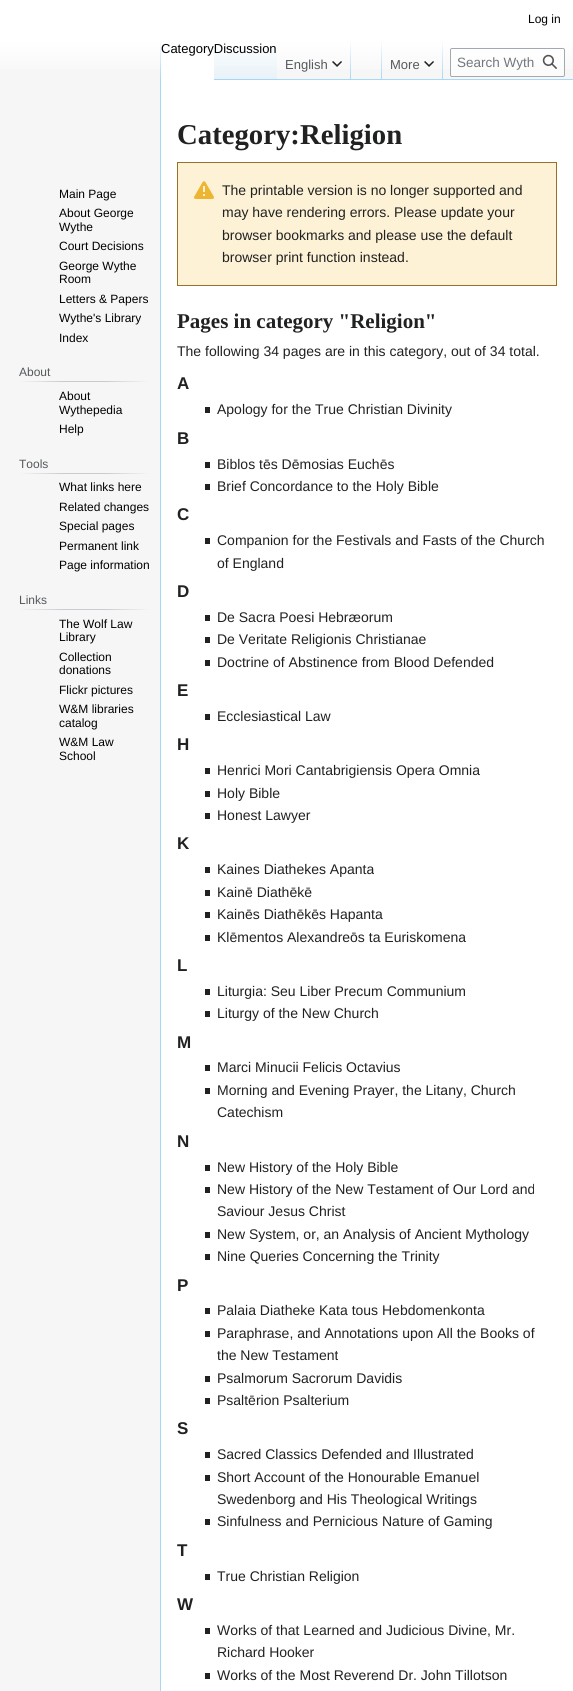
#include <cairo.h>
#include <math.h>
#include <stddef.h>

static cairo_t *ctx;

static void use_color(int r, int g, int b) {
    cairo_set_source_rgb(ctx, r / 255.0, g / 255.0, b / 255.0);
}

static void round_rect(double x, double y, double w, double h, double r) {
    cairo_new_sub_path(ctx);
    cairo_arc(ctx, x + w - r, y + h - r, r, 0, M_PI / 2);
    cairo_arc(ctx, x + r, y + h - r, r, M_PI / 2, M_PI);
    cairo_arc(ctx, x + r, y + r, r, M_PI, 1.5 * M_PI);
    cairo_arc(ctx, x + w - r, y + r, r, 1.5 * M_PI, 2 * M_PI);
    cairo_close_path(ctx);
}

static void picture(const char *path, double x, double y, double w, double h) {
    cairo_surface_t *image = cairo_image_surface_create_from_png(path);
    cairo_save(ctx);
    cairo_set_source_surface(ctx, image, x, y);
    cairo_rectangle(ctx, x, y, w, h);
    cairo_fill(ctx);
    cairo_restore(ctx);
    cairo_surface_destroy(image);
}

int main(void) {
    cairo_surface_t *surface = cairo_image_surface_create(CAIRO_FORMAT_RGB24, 573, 1691);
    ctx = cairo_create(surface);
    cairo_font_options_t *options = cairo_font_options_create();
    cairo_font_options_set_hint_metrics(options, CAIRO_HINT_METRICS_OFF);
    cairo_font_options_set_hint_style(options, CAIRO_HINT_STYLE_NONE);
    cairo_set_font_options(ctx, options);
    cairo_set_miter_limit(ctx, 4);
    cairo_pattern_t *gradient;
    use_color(246, 246, 246);
    cairo_paint(ctx);
    gradient = cairo_pattern_create_linear(287, 0, 287, 80);
    cairo_pattern_add_color_stop_rgba(gradient, 0.5, 1, 1, 1, 1);
    cairo_pattern_add_color_stop_rgba(gradient, 1, 0.965, 0.965, 0.965, 1);
    cairo_set_source(ctx, gradient);
    cairo_pattern_destroy(gradient);
    cairo_rectangle(ctx, 0, 0, 573, 69);
    cairo_fill(ctx);
    cairo_select_font_face(ctx, "Liberation Sans", CAIRO_FONT_SLANT_NORMAL, CAIRO_FONT_WEIGHT_NORMAL);
    cairo_set_font_size(ctx, 12);
    use_color(0, 0, 0);
    cairo_move_to(ctx, 528, 23);
    cairo_show_text(ctx, "Log in");
    use_color(167, 215, 249);
    cairo_rectangle(ctx, 160, 79, 1, 1612);
    cairo_fill(ctx);
    gradient = cairo_pattern_create_linear(161, 40, 161, 80);
    cairo_pattern_add_color_stop_rgba(gradient, 0, 0.655, 0.843, 0.976, 0);
    cairo_pattern_add_color_stop_rgba(gradient, 1, 0.655, 0.843, 0.976, 1);
    cairo_set_source(ctx, gradient);
    cairo_pattern_destroy(gradient);
    cairo_rectangle(ctx, 160, 40, 1, 40);
    cairo_fill(ctx);
    use_color(255, 255, 255);
    cairo_rectangle(ctx, 161, 51, 53, 29);
    cairo_fill(ctx);
    gradient = cairo_pattern_create_linear(246, 80, 246, 40);
    cairo_pattern_add_color_stop_rgba(gradient, 0, 0.467, 0.757, 0.965, 1);
    cairo_pattern_add_color_stop_rgba(gradient, 0.03, 0.91, 0.949, 0.973, 1);
    cairo_pattern_add_color_stop_rgba(gradient, 1, 1, 1, 1, 1);
    cairo_set_source(ctx, gradient);
    cairo_pattern_destroy(gradient);
    cairo_rectangle(ctx, 214, 46, 63, 34);
    cairo_fill(ctx);
    cairo_set_font_size(ctx, 13);
    use_color(0, 0, 0);
    cairo_move_to(ctx, 161, 53);
    cairo_show_text(ctx, "CategoryDiscussion");
    use_color(167, 215, 249);
    cairo_rectangle(ctx, 277, 79, 296, 1);
    cairo_fill(ctx);
    gradient = cairo_pattern_create_linear(351, 40, 351, 80);
    cairo_pattern_add_color_stop_rgba(gradient, 0, 0.655, 0.843, 0.976, 0);
    cairo_pattern_add_color_stop_rgba(gradient, 1, 0.655, 0.843, 0.976, 1);
    cairo_set_source(ctx, gradient);
    cairo_pattern_destroy(gradient);
    cairo_rectangle(ctx, 350, 40, 1, 40);
    cairo_fill(ctx);
    use_color(84, 89, 93);
    cairo_move_to(ctx, 285, 69);
    cairo_show_text(ctx, "English");
    picture("img1.png", 332, 61, 10, 6);
    gradient = cairo_pattern_create_linear(382, 40, 382, 80);
    cairo_pattern_add_color_stop_rgba(gradient, 0, 0.655, 0.843, 0.976, 0);
    cairo_pattern_add_color_stop_rgba(gradient, 1, 0.655, 0.843, 0.976, 1);
    cairo_set_source(ctx, gradient);
    cairo_pattern_destroy(gradient);
    cairo_rectangle(ctx, 381, 40, 1, 40);
    cairo_fill(ctx);
    gradient = cairo_pattern_create_linear(443, 40, 443, 80);
    cairo_pattern_add_color_stop_rgba(gradient, 0, 0.655, 0.843, 0.976, 0);
    cairo_pattern_add_color_stop_rgba(gradient, 1, 0.655, 0.843, 0.976, 1);
    cairo_set_source(ctx, gradient);
    cairo_pattern_destroy(gradient);
    cairo_rectangle(ctx, 442, 40, 1, 40);
    cairo_fill(ctx);
    use_color(84, 89, 93);
    cairo_move_to(ctx, 390, 69);
    cairo_show_text(ctx, "More");
    picture("img1.png", 424, 61, 10, 6);
    cairo_set_source_rgba(ctx, 1, 1, 1, 0.5);
    round_rect(450.5, 48.5, 114, 28, 1.5);
    cairo_fill_preserve(ctx);
    use_color(162, 169, 177);
    cairo_set_line_width(ctx, 1);
    cairo_stroke(ctx);
    cairo_set_font_size(ctx, 13.5);
    use_color(114, 119, 125);
    cairo_move_to(ctx, 457, 67);
    cairo_show_text(ctx, "Search Wyth");
    picture("img2.png", 542, 54, 15, 15);
    cairo_set_font_size(ctx, 12);
    use_color(0, 0, 0);
    cairo_move_to(ctx, 59, 198);
    cairo_show_text(ctx, "Main Page");
    cairo_move_to(ctx, 59, 217);
    cairo_show_text(ctx, "About George");
    cairo_move_to(ctx, 59, 231);
    cairo_show_text(ctx, "Wythe");
    cairo_move_to(ctx, 59, 250);
    cairo_show_text(ctx, "Court Decisions");
    cairo_move_to(ctx, 59, 270);
    cairo_show_text(ctx, "George Wythe");
    cairo_move_to(ctx, 59, 283);
    cairo_show_text(ctx, "Room");
    cairo_move_to(ctx, 59, 303);
    cairo_show_text(ctx, "Letters & Papers");
    cairo_move_to(ctx, 59, 322);
    cairo_show_text(ctx, "Wythe's Library");
    cairo_move_to(ctx, 59, 342);
    cairo_show_text(ctx, "Index");
    gradient = cairo_pattern_create_linear(19, 382, 150, 382);
    cairo_pattern_add_color_stop_rgba(gradient, 0, 0.965, 0.965, 0.965, 1);
    cairo_pattern_add_color_stop_rgba(gradient, 0.33, 0.784, 0.8, 0.82, 1);
    cairo_pattern_add_color_stop_rgba(gradient, 0.66, 0.784, 0.8, 0.82, 1);
    cairo_pattern_add_color_stop_rgba(gradient, 1, 0.965, 0.965, 0.965, 1);
    cairo_set_source(ctx, gradient);
    cairo_pattern_destroy(gradient);
    cairo_rectangle(ctx, 19, 381, 131, 1);
    cairo_fill(ctx);
    use_color(84, 89, 93);
    cairo_move_to(ctx, 19, 376);
    cairo_show_text(ctx, "About");
    use_color(0, 0, 0);
    cairo_move_to(ctx, 59, 400);
    cairo_show_text(ctx, "About");
    cairo_move_to(ctx, 59, 414);
    cairo_show_text(ctx, "Wythepedia");
    cairo_move_to(ctx, 59, 433);
    cairo_show_text(ctx, "Help");
    gradient = cairo_pattern_create_linear(19, 474, 150, 474);
    cairo_pattern_add_color_stop_rgba(gradient, 0, 0.965, 0.965, 0.965, 1);
    cairo_pattern_add_color_stop_rgba(gradient, 0.33, 0.784, 0.8, 0.82, 1);
    cairo_pattern_add_color_stop_rgba(gradient, 0.66, 0.784, 0.8, 0.82, 1);
    cairo_pattern_add_color_stop_rgba(gradient, 1, 0.965, 0.965, 0.965, 1);
    cairo_set_source(ctx, gradient);
    cairo_pattern_destroy(gradient);
    cairo_rectangle(ctx, 19, 473, 131, 1);
    cairo_fill(ctx);
    use_color(84, 89, 93);
    cairo_move_to(ctx, 19, 468);
    cairo_show_text(ctx, "Tools");
    use_color(0, 0, 0);
    cairo_move_to(ctx, 59, 491);
    cairo_show_text(ctx, "What links here");
    cairo_move_to(ctx, 59, 511);
    cairo_show_text(ctx, "Related changes");
    cairo_move_to(ctx, 59, 530);
    cairo_show_text(ctx, "Special pages");
    cairo_move_to(ctx, 59, 550);
    cairo_show_text(ctx, "Permanent link");
    cairo_move_to(ctx, 59, 569);
    cairo_show_text(ctx, "Page information");
    gradient = cairo_pattern_create_linear(19, 610, 150, 610);
    cairo_pattern_add_color_stop_rgba(gradient, 0, 0.965, 0.965, 0.965, 1);
    cairo_pattern_add_color_stop_rgba(gradient, 0.33, 0.784, 0.8, 0.82, 1);
    cairo_pattern_add_color_stop_rgba(gradient, 0.66, 0.784, 0.8, 0.82, 1);
    cairo_pattern_add_color_stop_rgba(gradient, 1, 0.965, 0.965, 0.965, 1);
    cairo_set_source(ctx, gradient);
    cairo_pattern_destroy(gradient);
    cairo_rectangle(ctx, 19, 609, 131, 1);
    cairo_fill(ctx);
    use_color(84, 89, 93);
    cairo_move_to(ctx, 19, 604);
    cairo_show_text(ctx, "Links");
    use_color(0, 0, 0);
    cairo_move_to(ctx, 59, 628);
    cairo_show_text(ctx, "The Wolf Law");
    cairo_move_to(ctx, 59, 641);
    cairo_show_text(ctx, "Library");
    cairo_move_to(ctx, 59, 661);
    cairo_show_text(ctx, "Collection");
    cairo_move_to(ctx, 59, 674);
    cairo_show_text(ctx, "donations");
    cairo_move_to(ctx, 59, 694);
    cairo_show_text(ctx, "Flickr pictures");
    cairo_move_to(ctx, 59, 713);
    cairo_show_text(ctx, "W&M libraries");
    cairo_move_to(ctx, 59, 727);
    cairo_show_text(ctx, "catalog");
    cairo_move_to(ctx, 59, 746);
    cairo_show_text(ctx, "W&M Law");
    cairo_move_to(ctx, 59, 760);
    cairo_show_text(ctx, "School");
    use_color(255, 255, 255);
    cairo_rectangle(ctx, 161, 80, 412, 1611);
    cairo_fill(ctx);
    cairo_select_font_face(ctx, "Liberation Serif", CAIRO_FONT_SLANT_NORMAL, CAIRO_FONT_WEIGHT_BOLD);
    cairo_set_font_size(ctx, 28.75);
    use_color(32, 33, 34);
    cairo_move_to(ctx, 177, 144);
    cairo_show_text(ctx, "Category:Religion");
    use_color(253, 242, 213);
    cairo_rectangle(ctx, 177.5, 162.5, 379, 123);
    cairo_fill_preserve(ctx);
    use_color(152, 112, 39);
    cairo_stroke(ctx);
    picture("img3.png", 194, 181, 20, 18);
    cairo_select_font_face(ctx, "Liberation Sans", CAIRO_FONT_SLANT_NORMAL, CAIRO_FONT_WEIGHT_NORMAL);
    cairo_set_font_size(ctx, 14);
    use_color(32, 33, 34);
    cairo_move_to(ctx, 222, 195);
    cairo_show_text(ctx, "The printable version is no longer supported and");
    cairo_move_to(ctx, 222, 217);
    cairo_show_text(ctx, "may have rendering errors. Please update your");
    cairo_move_to(ctx, 222, 240);
    cairo_show_text(ctx, "browser bookmarks and please use the default");
    cairo_move_to(ctx, 222, 262);
    cairo_show_text(ctx, "browser print function instead.");
    cairo_select_font_face(ctx, "Liberation Serif", CAIRO_FONT_SLANT_NORMAL, CAIRO_FONT_WEIGHT_BOLD);
    cairo_set_font_size(ctx, 21);
    cairo_move_to(ctx, 177, 328);
    cairo_show_text(ctx, "Pages in category \"Religion\"");
    cairo_select_font_face(ctx, "Liberation Sans", CAIRO_FONT_SLANT_NORMAL, CAIRO_FONT_WEIGHT_NORMAL);
    cairo_set_font_size(ctx, 14);
    cairo_move_to(ctx, 177, 356);
    cairo_show_text(ctx, "The following 34 pages are in this category, out of 34 total.");
    cairo_select_font_face(ctx, "Liberation Sans", CAIRO_FONT_SLANT_NORMAL, CAIRO_FONT_WEIGHT_BOLD);
    cairo_set_font_size(ctx, 17);
    cairo_move_to(ctx, 177, 389);
    cairo_show_text(ctx, "A");
    cairo_rectangle(ctx, 205, 407, 5, 6);
    cairo_fill(ctx);
    cairo_select_font_face(ctx, "Liberation Sans", CAIRO_FONT_SLANT_NORMAL, CAIRO_FONT_WEIGHT_NORMAL);
    cairo_set_font_size(ctx, 14);
    cairo_move_to(ctx, 217, 414);
    cairo_show_text(ctx, "Apology for the True Christian Divinity");
    cairo_select_font_face(ctx, "Liberation Sans", CAIRO_FONT_SLANT_NORMAL, CAIRO_FONT_WEIGHT_BOLD);
    cairo_set_font_size(ctx, 17);
    cairo_move_to(ctx, 177, 444);
    cairo_show_text(ctx, "B");
    cairo_rectangle(ctx, 205, 462, 5, 6);
    cairo_fill(ctx);
    cairo_select_font_face(ctx, "Liberation Sans", CAIRO_FONT_SLANT_NORMAL, CAIRO_FONT_WEIGHT_NORMAL);
    cairo_set_font_size(ctx, 14);
    cairo_move_to(ctx, 217, 469);
    cairo_show_text(ctx, "Biblos tēs Dēmosias Euchēs");
    cairo_rectangle(ctx, 205, 484, 5, 6);
    cairo_fill(ctx);
    cairo_move_to(ctx, 217, 491);
    cairo_show_text(ctx, "Brief Concordance to the Holy Bible");
    cairo_select_font_face(ctx, "Liberation Sans", CAIRO_FONT_SLANT_NORMAL, CAIRO_FONT_WEIGHT_BOLD);
    cairo_set_font_size(ctx, 17);
    cairo_move_to(ctx, 177, 520);
    cairo_show_text(ctx, "C");
    cairo_rectangle(ctx, 205, 538, 5, 6);
    cairo_fill(ctx);
    cairo_select_font_face(ctx, "Liberation Sans", CAIRO_FONT_SLANT_NORMAL, CAIRO_FONT_WEIGHT_NORMAL);
    cairo_set_font_size(ctx, 14);
    cairo_move_to(ctx, 217, 545);
    cairo_show_text(ctx, "Companion for the Festivals and Fasts of the Church");
    cairo_move_to(ctx, 217, 568);
    cairo_show_text(ctx, "of England");
    cairo_select_font_face(ctx, "Liberation Sans", CAIRO_FONT_SLANT_NORMAL, CAIRO_FONT_WEIGHT_BOLD);
    cairo_set_font_size(ctx, 17);
    cairo_move_to(ctx, 177, 597);
    cairo_show_text(ctx, "D");
    cairo_rectangle(ctx, 205, 615, 5, 6);
    cairo_fill(ctx);
    cairo_select_font_face(ctx, "Liberation Sans", CAIRO_FONT_SLANT_NORMAL, CAIRO_FONT_WEIGHT_NORMAL);
    cairo_set_font_size(ctx, 14);
    cairo_move_to(ctx, 217, 622);
    cairo_show_text(ctx, "De Sacra Poesi Hebræorum");
    cairo_rectangle(ctx, 205, 637, 5, 6);
    cairo_fill(ctx);
    cairo_move_to(ctx, 217, 644);
    cairo_show_text(ctx, "De Veritate Religionis Christianae");
    cairo_rectangle(ctx, 205, 660, 5, 6);
    cairo_fill(ctx);
    cairo_move_to(ctx, 217, 667);
    cairo_show_text(ctx, "Doctrine of Abstinence from Blood Defended");
    cairo_select_font_face(ctx, "Liberation Sans", CAIRO_FONT_SLANT_NORMAL, CAIRO_FONT_WEIGHT_BOLD);
    cairo_set_font_size(ctx, 17);
    cairo_move_to(ctx, 177, 696);
    cairo_show_text(ctx, "E");
    cairo_rectangle(ctx, 205, 714, 5, 6);
    cairo_fill(ctx);
    cairo_select_font_face(ctx, "Liberation Sans", CAIRO_FONT_SLANT_NORMAL, CAIRO_FONT_WEIGHT_NORMAL);
    cairo_set_font_size(ctx, 14);
    cairo_move_to(ctx, 217, 721);
    cairo_show_text(ctx, "Ecclesiastical Law");
    cairo_select_font_face(ctx, "Liberation Sans", CAIRO_FONT_SLANT_NORMAL, CAIRO_FONT_WEIGHT_BOLD);
    cairo_set_font_size(ctx, 17);
    cairo_move_to(ctx, 177, 750);
    cairo_show_text(ctx, "H");
    cairo_rectangle(ctx, 205, 768, 5, 6);
    cairo_fill(ctx);
    cairo_select_font_face(ctx, "Liberation Sans", CAIRO_FONT_SLANT_NORMAL, CAIRO_FONT_WEIGHT_NORMAL);
    cairo_set_font_size(ctx, 14);
    cairo_move_to(ctx, 217, 775);
    cairo_show_text(ctx, "Henrici Mori Cantabrigiensis Opera Omnia");
    cairo_rectangle(ctx, 205, 791, 5, 6);
    cairo_fill(ctx);
    cairo_move_to(ctx, 217, 798);
    cairo_show_text(ctx, "Holy Bible");
    cairo_rectangle(ctx, 205, 813, 5, 6);
    cairo_fill(ctx);
    cairo_move_to(ctx, 217, 820);
    cairo_show_text(ctx, "Honest Lawyer");
    cairo_select_font_face(ctx, "Liberation Sans", CAIRO_FONT_SLANT_NORMAL, CAIRO_FONT_WEIGHT_BOLD);
    cairo_set_font_size(ctx, 17);
    cairo_move_to(ctx, 177, 849);
    cairo_show_text(ctx, "K");
    cairo_rectangle(ctx, 205, 867, 5, 6);
    cairo_fill(ctx);
    cairo_select_font_face(ctx, "Liberation Sans", CAIRO_FONT_SLANT_NORMAL, CAIRO_FONT_WEIGHT_NORMAL);
    cairo_set_font_size(ctx, 14);
    cairo_move_to(ctx, 217, 874);
    cairo_show_text(ctx, "Kaines Diathekes Apanta");
    cairo_rectangle(ctx, 205, 890, 5, 6);
    cairo_fill(ctx);
    cairo_move_to(ctx, 217, 897);
    cairo_show_text(ctx, "Kainē Diathēkē");
    cairo_rectangle(ctx, 205, 912, 5, 6);
    cairo_fill(ctx);
    cairo_move_to(ctx, 217, 919);
    cairo_show_text(ctx, "Kainēs Diathēkēs Hapanta");
    cairo_rectangle(ctx, 205, 935, 5, 6);
    cairo_fill(ctx);
    cairo_move_to(ctx, 217, 942);
    cairo_show_text(ctx, "Klēmentos Alexandreōs ta Euriskomena");
    cairo_select_font_face(ctx, "Liberation Sans", CAIRO_FONT_SLANT_NORMAL, CAIRO_FONT_WEIGHT_BOLD);
    cairo_set_font_size(ctx, 17);
    cairo_move_to(ctx, 177, 971);
    cairo_show_text(ctx, "L");
    cairo_rectangle(ctx, 205, 989, 5, 6);
    cairo_fill(ctx);
    cairo_select_font_face(ctx, "Liberation Sans", CAIRO_FONT_SLANT_NORMAL, CAIRO_FONT_WEIGHT_NORMAL);
    cairo_set_font_size(ctx, 14);
    cairo_move_to(ctx, 217, 996);
    cairo_show_text(ctx, "Liturgia: Seu Liber Precum Communium");
    cairo_rectangle(ctx, 205, 1011, 5, 6);
    cairo_fill(ctx);
    cairo_move_to(ctx, 217, 1018);
    cairo_show_text(ctx, "Liturgy of the New Church");
    cairo_select_font_face(ctx, "Liberation Sans", CAIRO_FONT_SLANT_NORMAL, CAIRO_FONT_WEIGHT_BOLD);
    cairo_set_font_size(ctx, 17);
    cairo_move_to(ctx, 177, 1048);
    cairo_show_text(ctx, "M");
    cairo_rectangle(ctx, 205, 1065, 5, 6);
    cairo_fill(ctx);
    cairo_select_font_face(ctx, "Liberation Sans", CAIRO_FONT_SLANT_NORMAL, CAIRO_FONT_WEIGHT_NORMAL);
    cairo_set_font_size(ctx, 14);
    cairo_move_to(ctx, 217, 1072);
    cairo_show_text(ctx, "Marci Minucii Felicis Octavius");
    cairo_rectangle(ctx, 205, 1088, 5, 6);
    cairo_fill(ctx);
    cairo_move_to(ctx, 217, 1095);
    cairo_show_text(ctx, "Morning and Evening Prayer, the Litany, Church");
    cairo_move_to(ctx, 217, 1117);
    cairo_show_text(ctx, "Catechism");
    cairo_select_font_face(ctx, "Liberation Sans", CAIRO_FONT_SLANT_NORMAL, CAIRO_FONT_WEIGHT_BOLD);
    cairo_set_font_size(ctx, 17);
    cairo_move_to(ctx, 177, 1147);
    cairo_show_text(ctx, "N");
    cairo_rectangle(ctx, 205, 1165, 5, 6);
    cairo_fill(ctx);
    cairo_select_font_face(ctx, "Liberation Sans", CAIRO_FONT_SLANT_NORMAL, CAIRO_FONT_WEIGHT_NORMAL);
    cairo_set_font_size(ctx, 14);
    cairo_move_to(ctx, 217, 1172);
    cairo_show_text(ctx, "New History of the Holy Bible");
    cairo_rectangle(ctx, 205, 1187, 5, 6);
    cairo_fill(ctx);
    cairo_move_to(ctx, 217, 1194);
    cairo_show_text(ctx, "New History of the New Testament of Our Lord and");
    cairo_move_to(ctx, 217, 1216);
    cairo_show_text(ctx, "Saviour Jesus Christ");
    cairo_rectangle(ctx, 205, 1232, 5, 6);
    cairo_fill(ctx);
    cairo_move_to(ctx, 217, 1239);
    cairo_show_text(ctx, "New System, or, an Analysis of Ancient Mythology");
    cairo_rectangle(ctx, 205, 1254, 5, 6);
    cairo_fill(ctx);
    cairo_move_to(ctx, 217, 1261);
    cairo_show_text(ctx, "Nine Queries Concerning the Trinity");
    cairo_select_font_face(ctx, "Liberation Sans", CAIRO_FONT_SLANT_NORMAL, CAIRO_FONT_WEIGHT_BOLD);
    cairo_set_font_size(ctx, 17);
    cairo_move_to(ctx, 177, 1291);
    cairo_show_text(ctx, "P");
    cairo_rectangle(ctx, 205, 1308, 5, 6);
    cairo_fill(ctx);
    cairo_select_font_face(ctx, "Liberation Sans", CAIRO_FONT_SLANT_NORMAL, CAIRO_FONT_WEIGHT_NORMAL);
    cairo_set_font_size(ctx, 14);
    cairo_move_to(ctx, 217, 1315);
    cairo_show_text(ctx, "Palaia Diatheke Kata tous Hebdomenkonta");
    cairo_rectangle(ctx, 205, 1331, 5, 6);
    cairo_fill(ctx);
    cairo_move_to(ctx, 217, 1338);
    cairo_show_text(ctx, "Paraphrase, and Annotations upon All the Books of");
    cairo_move_to(ctx, 217, 1360);
    cairo_show_text(ctx, "the New Testament");
    cairo_rectangle(ctx, 205, 1376, 5, 6);
    cairo_fill(ctx);
    cairo_move_to(ctx, 217, 1383);
    cairo_show_text(ctx, "Psalmorum Sacrorum Davidis");
    cairo_rectangle(ctx, 205, 1398, 5, 6);
    cairo_fill(ctx);
    cairo_move_to(ctx, 217, 1405);
    cairo_show_text(ctx, "Psaltērion Psalterium");
    cairo_select_font_face(ctx, "Liberation Sans", CAIRO_FONT_SLANT_NORMAL, CAIRO_FONT_WEIGHT_BOLD);
    cairo_set_font_size(ctx, 17);
    cairo_move_to(ctx, 177, 1434);
    cairo_show_text(ctx, "S");
    cairo_rectangle(ctx, 205, 1452, 5, 6);
    cairo_fill(ctx);
    cairo_select_font_face(ctx, "Liberation Sans", CAIRO_FONT_SLANT_NORMAL, CAIRO_FONT_WEIGHT_NORMAL);
    cairo_set_font_size(ctx, 14);
    cairo_move_to(ctx, 217, 1459);
    cairo_show_text(ctx, "Sacred Classics Defended and Illustrated");
    cairo_rectangle(ctx, 205, 1475, 5, 6);
    cairo_fill(ctx);
    cairo_move_to(ctx, 217, 1482);
    cairo_show_text(ctx, "Short Account of the Honourable Emanuel");
    cairo_move_to(ctx, 217, 1504);
    cairo_show_text(ctx, "Swedenborg and His Theological Writings");
    cairo_rectangle(ctx, 205, 1519, 5, 6);
    cairo_fill(ctx);
    cairo_move_to(ctx, 217, 1526);
    cairo_show_text(ctx, "Sinfulness and Pernicious Nature of Gaming");
    cairo_select_font_face(ctx, "Liberation Sans", CAIRO_FONT_SLANT_NORMAL, CAIRO_FONT_WEIGHT_BOLD);
    cairo_set_font_size(ctx, 17);
    cairo_move_to(ctx, 177, 1556);
    cairo_show_text(ctx, "T");
    cairo_rectangle(ctx, 205, 1574, 5, 6);
    cairo_fill(ctx);
    cairo_select_font_face(ctx, "Liberation Sans", CAIRO_FONT_SLANT_NORMAL, CAIRO_FONT_WEIGHT_NORMAL);
    cairo_set_font_size(ctx, 14);
    cairo_move_to(ctx, 217, 1581);
    cairo_show_text(ctx, "True Christian Religion");
    cairo_select_font_face(ctx, "Liberation Sans", CAIRO_FONT_SLANT_NORMAL, CAIRO_FONT_WEIGHT_BOLD);
    cairo_set_font_size(ctx, 17);
    cairo_move_to(ctx, 177, 1610);
    cairo_show_text(ctx, "W");
    cairo_rectangle(ctx, 205, 1628, 5, 6);
    cairo_fill(ctx);
    cairo_select_font_face(ctx, "Liberation Sans", CAIRO_FONT_SLANT_NORMAL, CAIRO_FONT_WEIGHT_NORMAL);
    cairo_set_font_size(ctx, 14);
    cairo_move_to(ctx, 217, 1635);
    cairo_show_text(ctx, "Works of that Learned and Judicious Divine, Mr.");
    cairo_move_to(ctx, 217, 1657);
    cairo_show_text(ctx, "Richard Hooker");
    cairo_rectangle(ctx, 205, 1673, 5, 6);
    cairo_fill(ctx);
    cairo_move_to(ctx, 217, 1680);
    cairo_show_text(ctx, "Works of the Most Reverend Dr. John Tillotson");
    cairo_surface_write_to_png(surface, "result.png");
    cairo_font_options_destroy(options);
    cairo_destroy(ctx);
    cairo_surface_destroy(surface);
    return 0;
}
